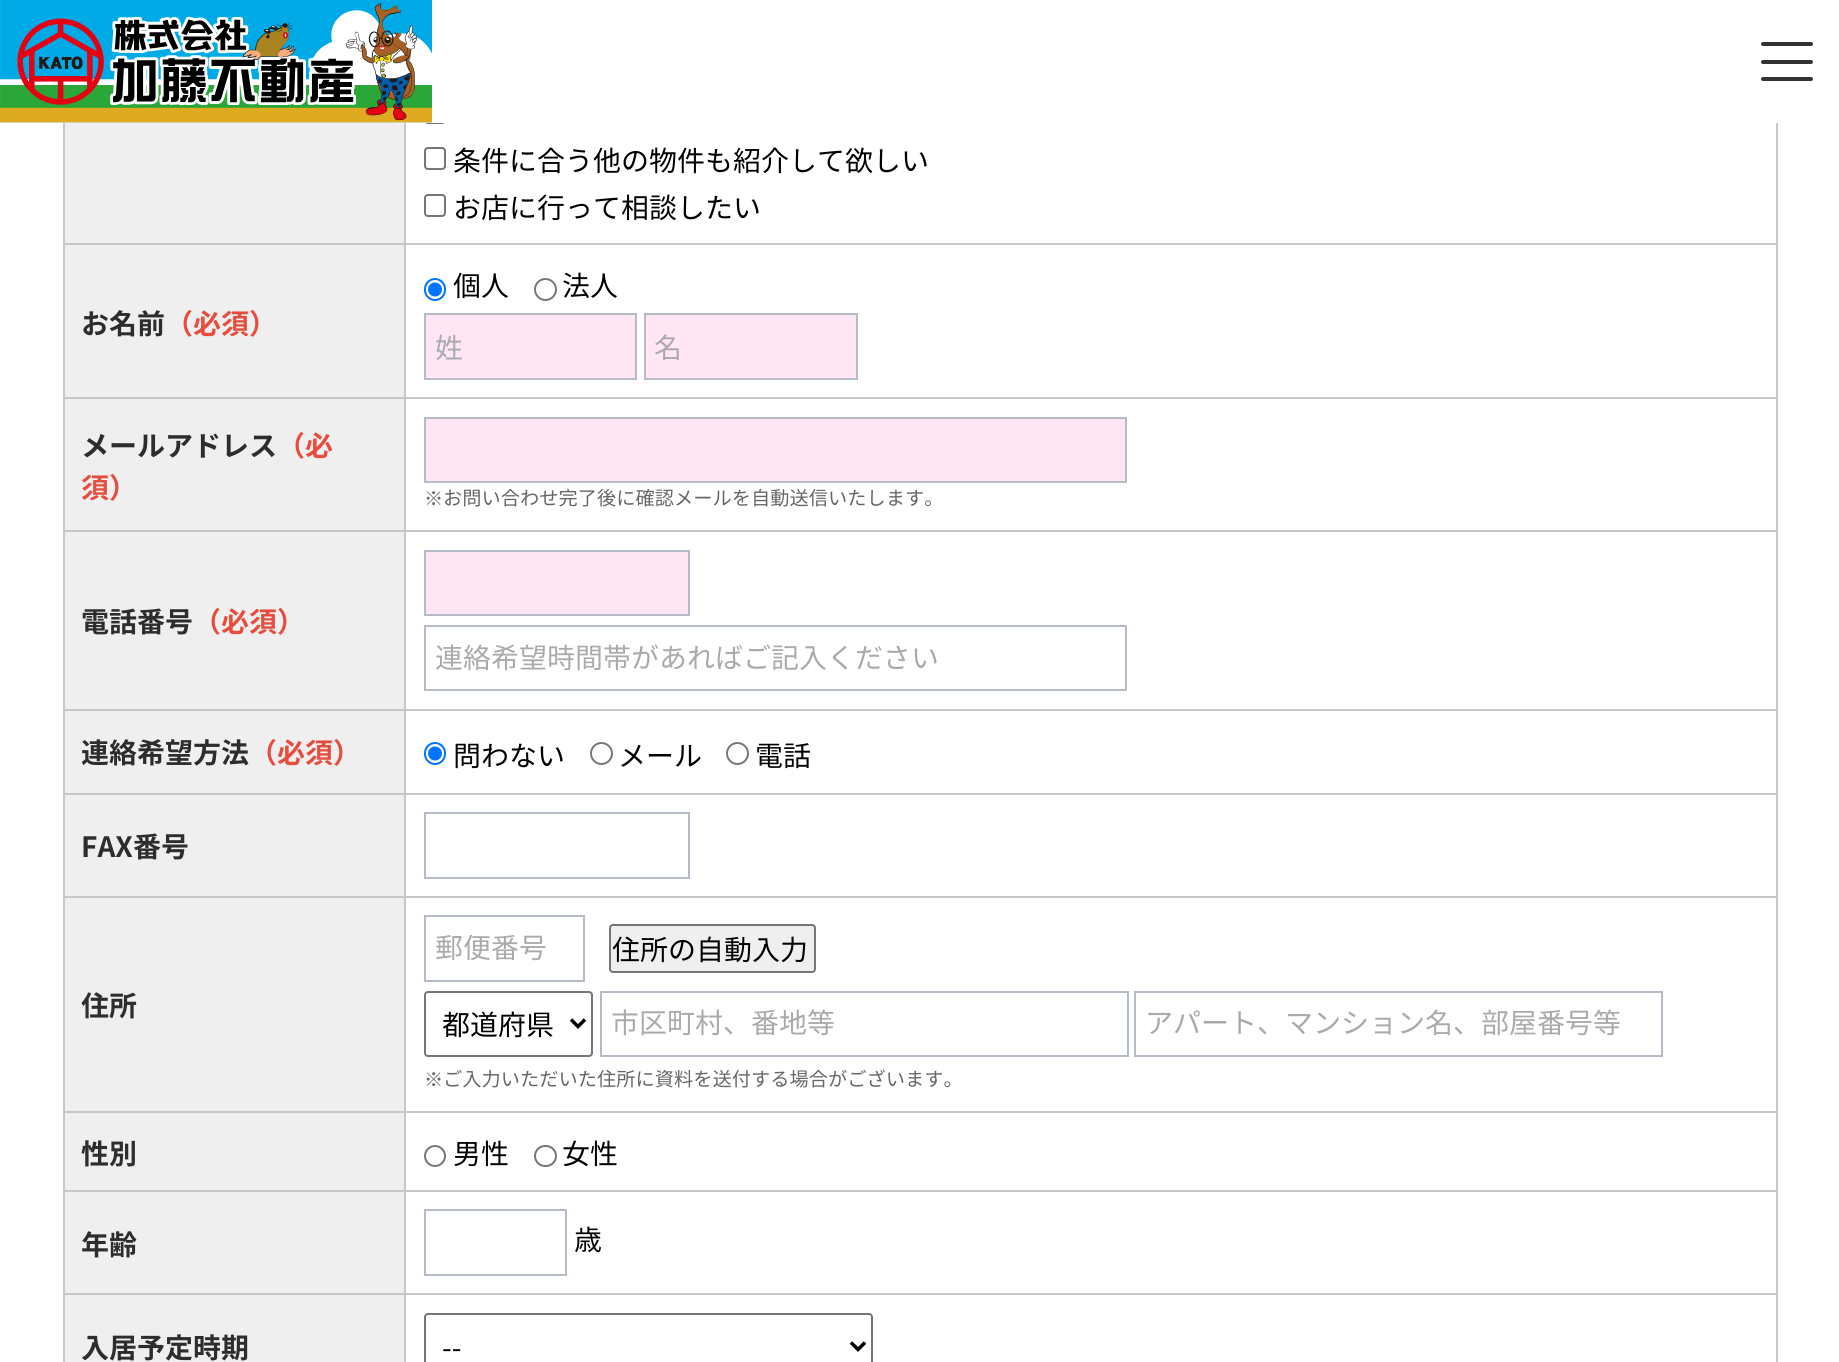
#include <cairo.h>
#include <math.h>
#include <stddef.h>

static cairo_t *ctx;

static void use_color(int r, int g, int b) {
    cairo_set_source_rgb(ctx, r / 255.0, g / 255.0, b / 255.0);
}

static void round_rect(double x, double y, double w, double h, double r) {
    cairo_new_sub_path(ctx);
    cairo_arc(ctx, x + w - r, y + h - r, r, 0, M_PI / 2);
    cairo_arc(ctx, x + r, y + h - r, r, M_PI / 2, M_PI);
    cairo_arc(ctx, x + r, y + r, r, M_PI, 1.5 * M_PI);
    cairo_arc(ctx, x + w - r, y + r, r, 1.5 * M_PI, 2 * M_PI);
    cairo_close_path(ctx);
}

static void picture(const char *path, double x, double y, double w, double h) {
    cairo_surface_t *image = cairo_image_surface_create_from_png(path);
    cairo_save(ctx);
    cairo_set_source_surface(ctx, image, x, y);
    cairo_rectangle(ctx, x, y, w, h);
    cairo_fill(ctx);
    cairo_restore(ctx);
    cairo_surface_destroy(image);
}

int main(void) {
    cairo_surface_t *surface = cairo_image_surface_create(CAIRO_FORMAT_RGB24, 1839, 1362);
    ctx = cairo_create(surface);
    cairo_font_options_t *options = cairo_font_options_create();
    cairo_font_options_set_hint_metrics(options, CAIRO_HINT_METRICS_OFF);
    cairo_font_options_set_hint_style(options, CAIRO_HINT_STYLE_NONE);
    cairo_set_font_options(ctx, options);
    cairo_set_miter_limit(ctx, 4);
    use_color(255, 255, 255);
    cairo_paint(ctx);
    round_rect(425, 103, 20, 20, 3);
    use_color(118, 118, 118);
    cairo_stroke(ctx);
    use_color(255, 255, 255);
    cairo_rectangle(ctx, 424, 102, 22, 21);
    cairo_fill(ctx);
    picture("img1.png", 0, 0, 432, 123);
    use_color(51, 51, 51);
    round_rect(1761, 42, 52, 4, 2);
    cairo_fill(ctx);
    round_rect(1761, 60, 52, 4, 2);
    cairo_fill(ctx);
    round_rect(1761, 77, 52, 4, 2);
    cairo_fill(ctx);
    use_color(239, 239, 239);
    cairo_rectangle(ctx, 65, 123, 339, 120);
    cairo_fill(ctx);
    use_color(199, 199, 199);
    cairo_rectangle(ctx, 404, 243, 1374, 2);
    cairo_fill(ctx);
    cairo_rectangle(ctx, 404, 397, 1374, 2);
    cairo_fill(ctx);
    cairo_rectangle(ctx, 404, 530, 1374, 2);
    cairo_fill(ctx);
    cairo_rectangle(ctx, 404, 709, 1374, 2);
    cairo_fill(ctx);
    cairo_rectangle(ctx, 404, 793, 1374, 2);
    cairo_fill(ctx);
    cairo_rectangle(ctx, 404, 896, 1374, 2);
    cairo_fill(ctx);
    cairo_rectangle(ctx, 404, 1111, 1374, 2);
    cairo_fill(ctx);
    cairo_rectangle(ctx, 404, 1190, 1374, 2);
    cairo_fill(ctx);
    cairo_rectangle(ctx, 404, 1293, 1374, 2);
    cairo_fill(ctx);
    cairo_rectangle(ctx, 404, 1293, 2, 69);
    cairo_fill(ctx);
    cairo_rectangle(ctx, 63, 1293, 343, 2);
    cairo_fill(ctx);
    cairo_rectangle(ctx, 404, 1190, 2, 105);
    cairo_fill(ctx);
    cairo_rectangle(ctx, 63, 1190, 343, 2);
    cairo_fill(ctx);
    cairo_rectangle(ctx, 404, 1111, 2, 81);
    cairo_fill(ctx);
    cairo_rectangle(ctx, 63, 1111, 343, 2);
    cairo_fill(ctx);
    cairo_rectangle(ctx, 404, 896, 2, 217);
    cairo_fill(ctx);
    cairo_rectangle(ctx, 63, 896, 343, 2);
    cairo_fill(ctx);
    cairo_rectangle(ctx, 404, 793, 2, 105);
    cairo_fill(ctx);
    cairo_rectangle(ctx, 63, 793, 343, 2);
    cairo_fill(ctx);
    cairo_rectangle(ctx, 404, 709, 2, 86);
    cairo_fill(ctx);
    cairo_rectangle(ctx, 63, 709, 343, 2);
    cairo_fill(ctx);
    cairo_rectangle(ctx, 404, 530, 2, 181);
    cairo_fill(ctx);
    cairo_rectangle(ctx, 63, 530, 343, 2);
    cairo_fill(ctx);
    cairo_rectangle(ctx, 404, 397, 2, 135);
    cairo_fill(ctx);
    cairo_rectangle(ctx, 63, 397, 343, 2);
    cairo_fill(ctx);
    cairo_rectangle(ctx, 404, 243, 2, 156);
    cairo_fill(ctx);
    cairo_rectangle(ctx, 63, 243, 343, 2);
    cairo_fill(ctx);
    cairo_rectangle(ctx, 404, 123, 2, 122);
    cairo_fill(ctx);
    round_rect(425, 148, 20, 21, 3);
    use_color(118, 118, 118);
    cairo_stroke(ctx);
    cairo_select_font_face(ctx, "Noto Sans JP", CAIRO_FONT_SLANT_NORMAL, CAIRO_FONT_WEIGHT_NORMAL);
    cairo_set_font_size(ctx, 28);
    use_color(0, 0, 0);
    cairo_move_to(ctx, 453, 171);
    cairo_show_text(ctx, "条件に合う他の物件も紹介して欲しい");
    round_rect(425, 195, 20, 21, 3);
    use_color(118, 118, 118);
    cairo_stroke(ctx);
    use_color(0, 0, 0);
    cairo_move_to(ctx, 453, 218);
    cairo_show_text(ctx, "お店に行って相談したい");
    use_color(239, 239, 239);
    cairo_rectangle(ctx, 65, 245, 339, 152);
    cairo_fill(ctx);
    use_color(199, 199, 199);
    cairo_rectangle(ctx, 63, 1293, 2, 69);
    cairo_fill(ctx);
    cairo_rectangle(ctx, 63, 1190, 2, 105);
    cairo_fill(ctx);
    cairo_rectangle(ctx, 63, 1111, 2, 81);
    cairo_fill(ctx);
    cairo_rectangle(ctx, 63, 896, 2, 217);
    cairo_fill(ctx);
    cairo_rectangle(ctx, 63, 793, 2, 105);
    cairo_fill(ctx);
    cairo_rectangle(ctx, 63, 709, 2, 86);
    cairo_fill(ctx);
    cairo_rectangle(ctx, 63, 530, 2, 181);
    cairo_fill(ctx);
    cairo_rectangle(ctx, 63, 397, 2, 135);
    cairo_fill(ctx);
    cairo_rectangle(ctx, 63, 123, 2, 276);
    cairo_fill(ctx);
    cairo_select_font_face(ctx, "Noto Sans JP", CAIRO_FONT_SLANT_NORMAL, CAIRO_FONT_WEIGHT_BOLD);
    use_color(45, 45, 45);
    cairo_move_to(ctx, 81, 334);
    cairo_show_text(ctx, "お名前");
    use_color(231, 76, 60);
    cairo_move_to(ctx, 165, 334);
    cairo_show_text(ctx, "（必須）");
    use_color(199, 199, 199);
    cairo_rectangle(ctx, 1776, 1293, 2, 69);
    cairo_fill(ctx);
    cairo_rectangle(ctx, 1776, 1190, 2, 105);
    cairo_fill(ctx);
    cairo_rectangle(ctx, 1776, 1111, 2, 81);
    cairo_fill(ctx);
    cairo_rectangle(ctx, 1776, 896, 2, 217);
    cairo_fill(ctx);
    cairo_rectangle(ctx, 1776, 793, 2, 105);
    cairo_fill(ctx);
    cairo_rectangle(ctx, 1776, 709, 2, 86);
    cairo_fill(ctx);
    cairo_rectangle(ctx, 1776, 530, 2, 181);
    cairo_fill(ctx);
    cairo_rectangle(ctx, 1776, 397, 2, 135);
    cairo_fill(ctx);
    cairo_rectangle(ctx, 1776, 123, 2, 276);
    cairo_fill(ctx);
    round_rect(425, 279, 20, 21, 10);
    use_color(0, 117, 255);
    cairo_stroke(ctx);
    cairo_arc(ctx, 435, 289.5, 7, 0, 2 * M_PI);
    cairo_fill(ctx);
    cairo_select_font_face(ctx, "Noto Sans JP", CAIRO_FONT_SLANT_NORMAL, CAIRO_FONT_WEIGHT_NORMAL);
    use_color(0, 0, 0);
    cairo_move_to(ctx, 453, 296);
    cairo_show_text(ctx, "個人");
    cairo_new_path(ctx);
    cairo_arc(ctx, 545.5, 289.5, 10.5, 0, 2 * M_PI);
    use_color(118, 118, 118);
    cairo_stroke(ctx);
    use_color(0, 0, 0);
    cairo_move_to(ctx, 562, 296);
    cairo_show_text(ctx, "法人");
    use_color(255, 230, 242);
    cairo_rectangle(ctx, 425, 314, 211, 65);
    cairo_fill_preserve(ctx);
    use_color(181, 188, 199);
    cairo_stroke(ctx);
    use_color(170, 170, 170);
    cairo_move_to(ctx, 435, 358);
    cairo_show_text(ctx, "姓");
    use_color(255, 230, 242);
    cairo_rectangle(ctx, 645, 314, 212, 65);
    cairo_fill_preserve(ctx);
    use_color(181, 188, 199);
    cairo_stroke(ctx);
    use_color(170, 170, 170);
    cairo_move_to(ctx, 654, 358);
    cairo_show_text(ctx, "名");
    use_color(239, 239, 239);
    cairo_rectangle(ctx, 65, 399, 339, 131);
    cairo_fill(ctx);
    cairo_select_font_face(ctx, "Noto Sans JP", CAIRO_FONT_SLANT_NORMAL, CAIRO_FONT_WEIGHT_BOLD);
    use_color(45, 45, 45);
    cairo_move_to(ctx, 81, 456);
    cairo_show_text(ctx, "メールアドレス");
    use_color(231, 76, 60);
    cairo_move_to(ctx, 277, 456);
    cairo_show_text(ctx, "（必");
    cairo_move_to(ctx, 81, 498);
    cairo_show_text(ctx, "須）");
    use_color(255, 230, 242);
    cairo_rectangle(ctx, 425, 418, 701, 64);
    cairo_fill_preserve(ctx);
    use_color(181, 188, 199);
    cairo_stroke(ctx);
    cairo_select_font_face(ctx, "WenQuanYi Zen Hei Medium", CAIRO_FONT_SLANT_NORMAL, CAIRO_FONT_WEIGHT_NORMAL);
    cairo_set_font_size(ctx, 19.25);
    use_color(102, 102, 102);
    cairo_move_to(ctx, 424, 505);
    cairo_show_text(ctx, "※");
    cairo_select_font_face(ctx, "Noto Sans JP", CAIRO_FONT_SLANT_NORMAL, CAIRO_FONT_WEIGHT_NORMAL);
    cairo_move_to(ctx, 443, 505);
    cairo_show_text(ctx, "お問い合わせ完了後に確認メールを自動送信いたします。");
    use_color(239, 239, 239);
    cairo_rectangle(ctx, 65, 532, 339, 177);
    cairo_fill(ctx);
    cairo_select_font_face(ctx, "Noto Sans JP", CAIRO_FONT_SLANT_NORMAL, CAIRO_FONT_WEIGHT_BOLD);
    cairo_set_font_size(ctx, 28);
    use_color(45, 45, 45);
    cairo_move_to(ctx, 81, 632);
    cairo_show_text(ctx, "電話番号");
    use_color(231, 76, 60);
    cairo_move_to(ctx, 193, 632);
    cairo_show_text(ctx, "（必須）");
    use_color(255, 230, 242);
    cairo_rectangle(ctx, 425, 551, 264, 64);
    cairo_fill_preserve(ctx);
    use_color(181, 188, 199);
    cairo_stroke(ctx);
    cairo_rectangle(ctx, 425, 626, 701, 64);
    cairo_stroke(ctx);
    cairo_select_font_face(ctx, "Noto Sans JP", CAIRO_FONT_SLANT_NORMAL, CAIRO_FONT_WEIGHT_NORMAL);
    use_color(170, 170, 170);
    cairo_move_to(ctx, 435, 668);
    cairo_show_text(ctx, "連絡希望時間帯があればご記入ください");
    use_color(239, 239, 239);
    cairo_rectangle(ctx, 65, 711, 339, 82);
    cairo_fill(ctx);
    cairo_select_font_face(ctx, "Noto Sans JP", CAIRO_FONT_SLANT_NORMAL, CAIRO_FONT_WEIGHT_BOLD);
    use_color(45, 45, 45);
    cairo_move_to(ctx, 81, 763);
    cairo_show_text(ctx, "連絡希望方法");
    use_color(231, 76, 60);
    cairo_move_to(ctx, 249, 763);
    cairo_show_text(ctx, "（必須）");
    round_rect(425, 743, 20, 21, 10);
    use_color(0, 117, 255);
    cairo_stroke(ctx);
    cairo_arc(ctx, 435, 753.5, 7, 0, 2 * M_PI);
    cairo_fill(ctx);
    cairo_select_font_face(ctx, "Noto Sans JP", CAIRO_FONT_SLANT_NORMAL, CAIRO_FONT_WEIGHT_NORMAL);
    use_color(0, 0, 0);
    cairo_move_to(ctx, 453, 766);
    cairo_show_text(ctx, "問わない");
    cairo_new_path(ctx);
    cairo_arc(ctx, 601.5, 753.5, 10.5, 0, 2 * M_PI);
    use_color(118, 118, 118);
    cairo_stroke(ctx);
    use_color(0, 0, 0);
    cairo_move_to(ctx, 618, 766);
    cairo_show_text(ctx, "メール");
    cairo_new_path(ctx);
    cairo_arc(ctx, 737.5, 753.5, 10.5, 0, 2 * M_PI);
    use_color(118, 118, 118);
    cairo_stroke(ctx);
    use_color(0, 0, 0);
    cairo_move_to(ctx, 755, 766);
    cairo_show_text(ctx, "電話");
    use_color(239, 239, 239);
    cairo_rectangle(ctx, 65, 795, 339, 101);
    cairo_fill(ctx);
    cairo_select_font_face(ctx, "Noto Sans JP", CAIRO_FONT_SLANT_NORMAL, CAIRO_FONT_WEIGHT_BOLD);
    use_color(45, 45, 45);
    cairo_move_to(ctx, 81, 857);
    cairo_show_text(ctx, "FAX番号");
    cairo_rectangle(ctx, 425, 813, 264, 65);
    use_color(181, 188, 199);
    cairo_stroke(ctx);
    use_color(239, 239, 239);
    cairo_rectangle(ctx, 65, 898, 339, 213);
    cairo_fill(ctx);
    use_color(45, 45, 45);
    cairo_move_to(ctx, 81, 1016);
    cairo_show_text(ctx, "住所");
    cairo_rectangle(ctx, 425, 916, 159, 65);
    use_color(181, 188, 199);
    cairo_stroke(ctx);
    cairo_select_font_face(ctx, "Noto Sans JP", CAIRO_FONT_SLANT_NORMAL, CAIRO_FONT_WEIGHT_NORMAL);
    use_color(170, 170, 170);
    cairo_move_to(ctx, 435, 958);
    cairo_show_text(ctx, "郵便番号");
    use_color(239, 239, 239);
    round_rect(610, 925, 205, 47, 3);
    cairo_fill_preserve(ctx);
    use_color(118, 118, 118);
    cairo_stroke(ctx);
    use_color(0, 0, 0);
    cairo_move_to(ctx, 612, 960);
    cairo_show_text(ctx, "住所の自動入力");
    round_rect(425, 992, 167, 64, 3);
    use_color(118, 118, 118);
    cairo_stroke(ctx);
    cairo_new_path(ctx);
    cairo_move_to(ctx, 571, 1019.5);
    cairo_line_to(ctx, 578, 1026.5);
    cairo_line_to(ctx, 585, 1019.5);
    use_color(0, 0, 0);
    cairo_set_line_width(ctx, 3.5);
    cairo_stroke(ctx);
    cairo_move_to(ctx, 442, 1035);
    cairo_show_text(ctx, "都道府県");
    cairo_rectangle(ctx, 601, 992, 527, 64);
    use_color(181, 188, 199);
    cairo_set_line_width(ctx, 2);
    cairo_stroke(ctx);
    use_color(170, 170, 170);
    cairo_move_to(ctx, 611, 1033);
    cairo_show_text(ctx, "市区町村、番地等");
    cairo_rectangle(ctx, 1135, 992, 527, 64);
    use_color(181, 188, 199);
    cairo_stroke(ctx);
    use_color(170, 170, 170);
    cairo_move_to(ctx, 1145, 1033);
    cairo_show_text(ctx, "アパート、マンション名、部屋番号等");
    cairo_select_font_face(ctx, "WenQuanYi Zen Hei Medium", CAIRO_FONT_SLANT_NORMAL, CAIRO_FONT_WEIGHT_NORMAL);
    cairo_set_font_size(ctx, 19.25);
    use_color(102, 102, 102);
    cairo_move_to(ctx, 424, 1086);
    cairo_show_text(ctx, "※");
    cairo_select_font_face(ctx, "Noto Sans JP", CAIRO_FONT_SLANT_NORMAL, CAIRO_FONT_WEIGHT_NORMAL);
    cairo_move_to(ctx, 443, 1086);
    cairo_show_text(ctx, "ご入力いただいた住所に資料を送付する場合がございます。");
    use_color(239, 239, 239);
    cairo_rectangle(ctx, 65, 1113, 339, 77);
    cairo_fill(ctx);
    cairo_select_font_face(ctx, "Noto Sans JP", CAIRO_FONT_SLANT_NORMAL, CAIRO_FONT_WEIGHT_BOLD);
    cairo_set_font_size(ctx, 28);
    use_color(45, 45, 45);
    cairo_move_to(ctx, 81, 1164);
    cairo_show_text(ctx, "性別");
    cairo_new_path(ctx);
    cairo_arc(ctx, 435, 1156, 10, 0, 2 * M_PI);
    use_color(118, 118, 118);
    cairo_stroke(ctx);
    cairo_select_font_face(ctx, "Noto Sans JP", CAIRO_FONT_SLANT_NORMAL, CAIRO_FONT_WEIGHT_NORMAL);
    use_color(0, 0, 0);
    cairo_move_to(ctx, 453, 1164);
    cairo_show_text(ctx, "男性");
    round_rect(535, 1146, 21, 20, 10);
    use_color(118, 118, 118);
    cairo_stroke(ctx);
    use_color(0, 0, 0);
    cairo_move_to(ctx, 562, 1164);
    cairo_show_text(ctx, "女性");
    use_color(239, 239, 239);
    cairo_rectangle(ctx, 65, 1192, 339, 101);
    cairo_fill(ctx);
    cairo_select_font_face(ctx, "Noto Sans JP", CAIRO_FONT_SLANT_NORMAL, CAIRO_FONT_WEIGHT_BOLD);
    use_color(45, 45, 45);
    cairo_move_to(ctx, 81, 1255);
    cairo_show_text(ctx, "年齢");
    cairo_rectangle(ctx, 425, 1210, 141, 65);
    use_color(181, 188, 199);
    cairo_stroke(ctx);
    cairo_select_font_face(ctx, "Noto Sans JP", CAIRO_FONT_SLANT_NORMAL, CAIRO_FONT_WEIGHT_NORMAL);
    use_color(0, 0, 0);
    cairo_move_to(ctx, 574, 1250);
    cairo_show_text(ctx, "歳");
    use_color(239, 239, 239);
    cairo_rectangle(ctx, 65, 1295, 339, 67);
    cairo_fill(ctx);
    cairo_select_font_face(ctx, "Noto Sans JP", CAIRO_FONT_SLANT_NORMAL, CAIRO_FONT_WEIGHT_BOLD);
    use_color(45, 45, 45);
    cairo_move_to(ctx, 81, 1358);
    cairo_show_text(ctx, "入居予定時期");
    round_rect(425, 1314, 447, 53, 3);
    use_color(118, 118, 118);
    cairo_stroke(ctx);
    cairo_new_path(ctx);
    cairo_move_to(ctx, 851, 1342.5);
    cairo_line_to(ctx, 858, 1349.5);
    cairo_line_to(ctx, 865, 1342.5);
    use_color(0, 0, 0);
    cairo_set_line_width(ctx, 3.5);
    cairo_stroke(ctx);
    cairo_select_font_face(ctx, "Noto Sans JP", CAIRO_FONT_SLANT_NORMAL, CAIRO_FONT_WEIGHT_NORMAL);
    cairo_move_to(ctx, 442, 1358);
    cairo_show_text(ctx, "--");
    cairo_surface_write_to_png(surface, "result.png");
    cairo_font_options_destroy(options);
    cairo_destroy(ctx);
    cairo_surface_destroy(surface);
    return 0;
}
